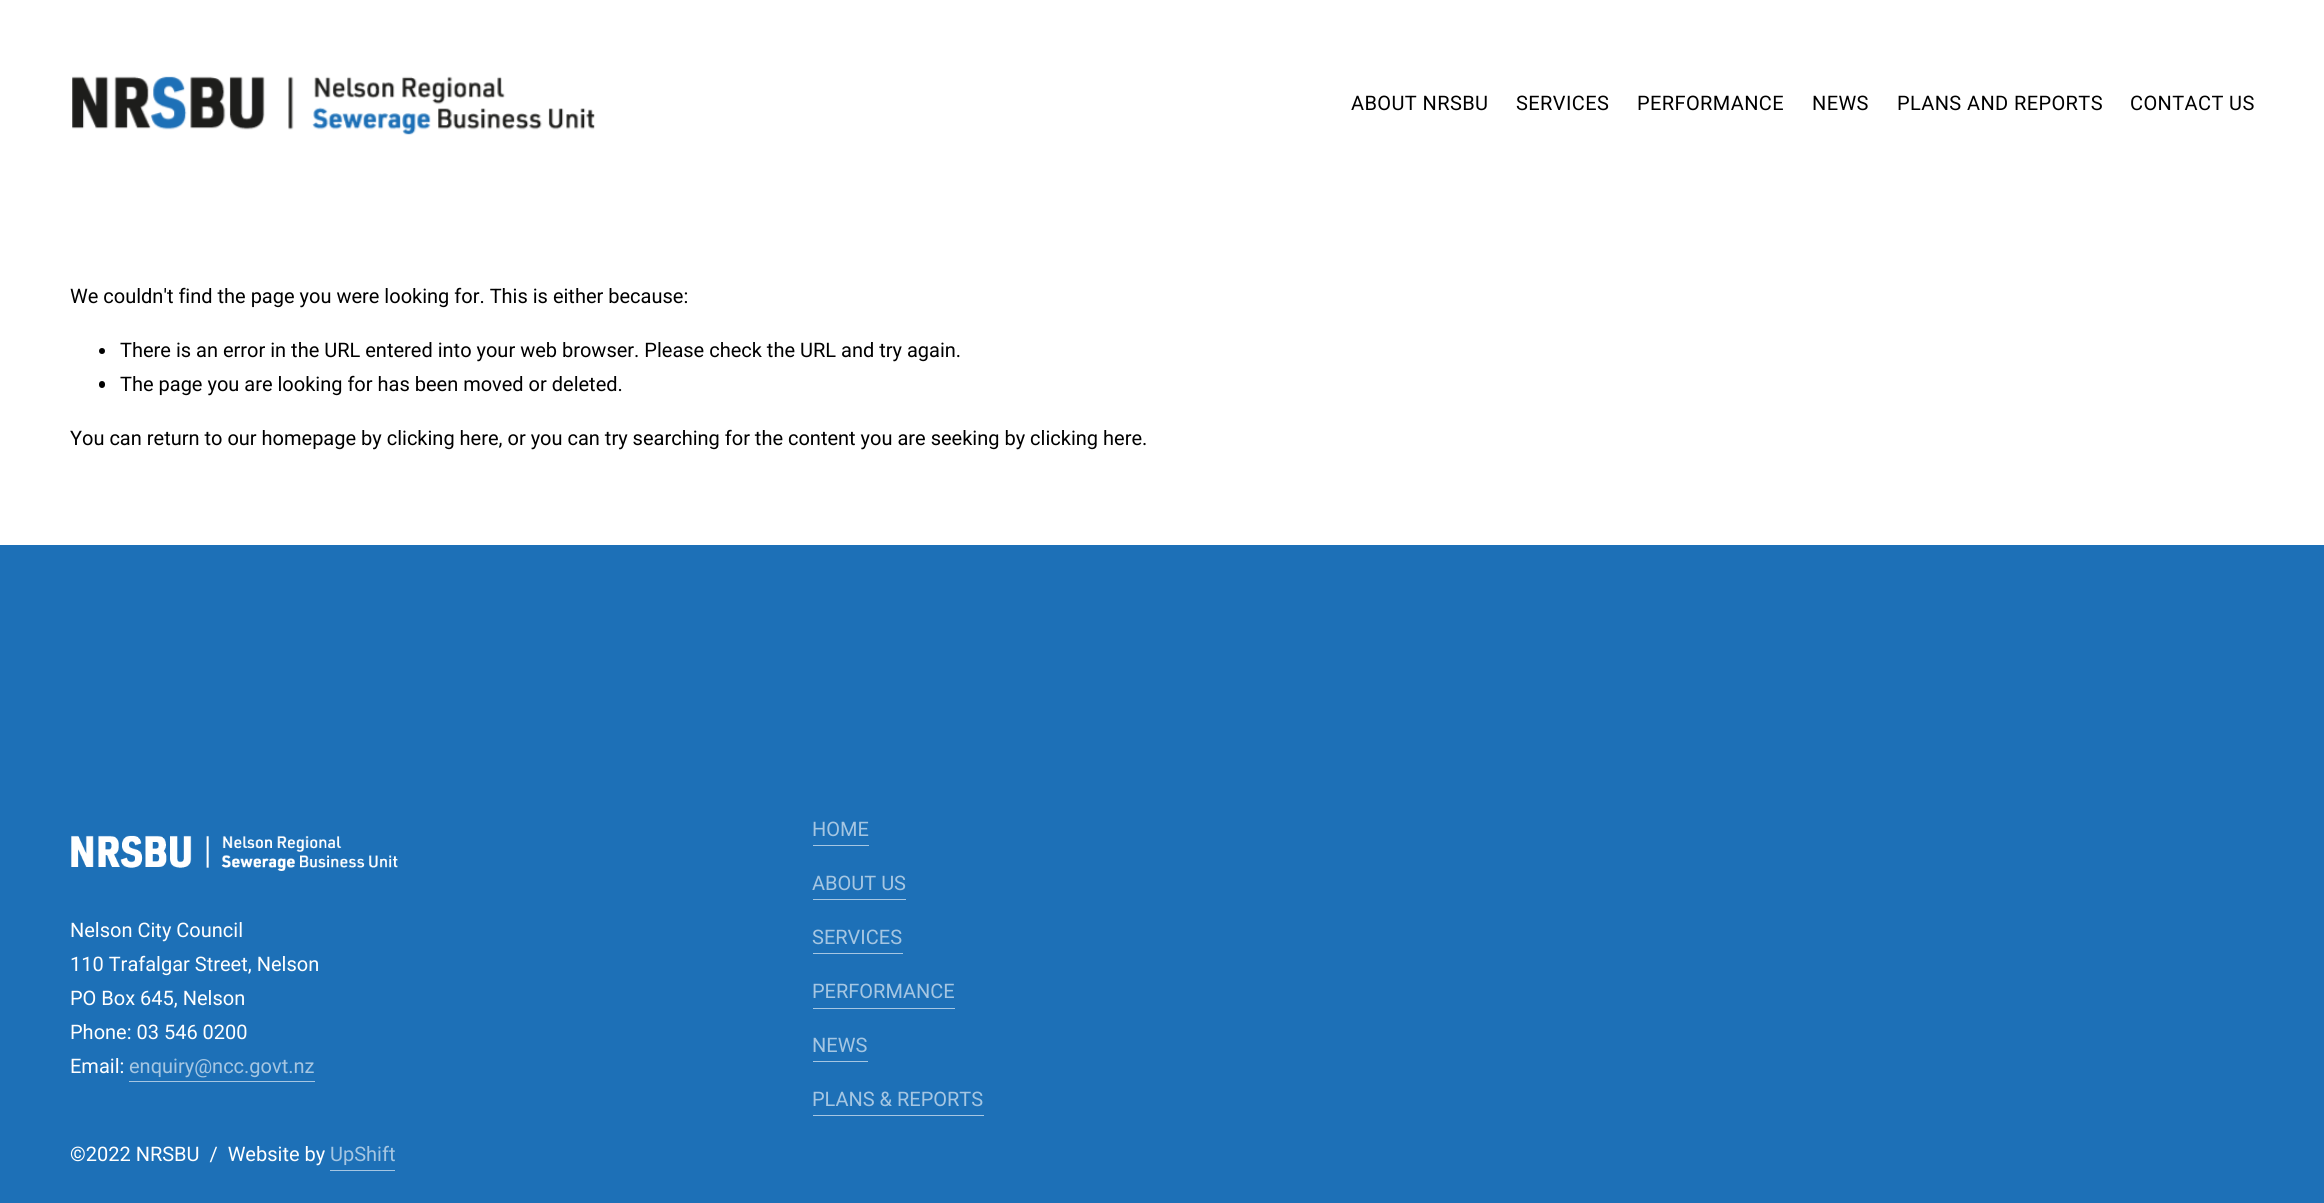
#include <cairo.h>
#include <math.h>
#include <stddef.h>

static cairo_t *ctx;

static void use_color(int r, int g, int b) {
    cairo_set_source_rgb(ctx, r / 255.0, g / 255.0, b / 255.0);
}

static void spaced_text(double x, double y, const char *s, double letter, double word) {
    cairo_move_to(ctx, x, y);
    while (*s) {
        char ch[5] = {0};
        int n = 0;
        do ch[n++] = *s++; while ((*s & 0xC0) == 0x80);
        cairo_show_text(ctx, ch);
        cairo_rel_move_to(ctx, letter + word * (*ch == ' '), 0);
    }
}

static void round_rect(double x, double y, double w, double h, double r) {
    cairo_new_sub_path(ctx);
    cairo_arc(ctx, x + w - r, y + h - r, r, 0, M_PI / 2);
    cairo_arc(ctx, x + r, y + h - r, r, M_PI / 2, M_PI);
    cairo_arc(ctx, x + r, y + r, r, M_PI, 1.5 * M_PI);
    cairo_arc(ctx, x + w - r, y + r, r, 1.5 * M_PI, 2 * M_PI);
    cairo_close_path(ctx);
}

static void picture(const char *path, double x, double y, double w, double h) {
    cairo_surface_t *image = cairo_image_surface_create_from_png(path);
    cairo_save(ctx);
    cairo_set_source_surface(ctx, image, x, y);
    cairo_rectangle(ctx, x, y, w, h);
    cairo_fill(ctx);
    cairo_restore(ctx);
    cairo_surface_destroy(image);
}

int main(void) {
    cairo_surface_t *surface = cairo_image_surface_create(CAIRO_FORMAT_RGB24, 2324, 1203);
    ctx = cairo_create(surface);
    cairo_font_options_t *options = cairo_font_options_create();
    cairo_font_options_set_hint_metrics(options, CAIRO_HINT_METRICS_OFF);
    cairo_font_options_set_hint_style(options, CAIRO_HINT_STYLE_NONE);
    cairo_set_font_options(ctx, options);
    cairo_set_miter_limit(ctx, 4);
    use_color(255, 255, 255);
    cairo_paint(ctx);
    picture("img1.png", 72, 76, 523, 59);
    cairo_select_font_face(ctx, "Roboto", CAIRO_FONT_SLANT_NORMAL, CAIRO_FONT_WEIGHT_NORMAL);
    cairo_set_font_size(ctx, 20);
    use_color(0, 0, 0);
    spaced_text(1351, 110, "ABOUT NRSBU", 0.4, 0);
    spaced_text(1516, 110, "SERVICES", 0.4, 0);
    spaced_text(1637, 110, "PERFORMANCE", 0.4, 0);
    spaced_text(1812, 110, "NEWS", 0.4, 0);
    spaced_text(1897, 110, "PLANS AND REPORTS", 0.4, 0);
    spaced_text(2130, 110, "CONTACT US", 0.4, 0);
    cairo_move_to(ctx, 70, 303);
    cairo_show_text(ctx, "We couldn't find the page you were looking for. This is either because:");
    cairo_new_path(ctx);
    cairo_arc(ctx, 102, 351, 3, 0, 2 * M_PI);
    cairo_fill(ctx);
    cairo_move_to(ctx, 120, 357);
    cairo_show_text(ctx, "There is an error in the URL entered into your web browser. Please check the URL and try again.");
    round_rect(99, 381, 6, 7, 3);
    cairo_fill(ctx);
    cairo_move_to(ctx, 120, 391);
    cairo_show_text(ctx, "The page you are looking for has been moved or deleted.");
    cairo_move_to(ctx, 70, 445);
    cairo_show_text(ctx, "You can return to our homepage by clicking here, or you can try searching for the content you are seeking by clicking here.");
    use_color(29, 112, 183);
    cairo_rectangle(ctx, 0, 545, 2324, 658);
    cairo_fill(ctx);
    picture("img2.png", 71, 835, 327, 36);
    use_color(255, 255, 255);
    cairo_move_to(ctx, 70, 937);
    cairo_show_text(ctx, "Nelson City Council");
    cairo_move_to(ctx, 70, 971);
    cairo_show_text(ctx, "110 Trafalgar Street, Nelson");
    cairo_move_to(ctx, 70, 1005);
    cairo_show_text(ctx, "PO Box 645, Nelson");
    cairo_move_to(ctx, 70, 1039);
    cairo_show_text(ctx, "Phone: 03 546 0200");
    cairo_move_to(ctx, 70, 1073);
    cairo_show_text(ctx, "Email:");
    use_color(165, 198, 226);
    cairo_rectangle(ctx, 129, 1081, 186, 1);
    cairo_fill(ctx);
    cairo_move_to(ctx, 129, 1073);
    cairo_show_text(ctx, "enquiry@ncc.govt.nz");
    cairo_rectangle(ctx, 813, 845, 56, 1);
    cairo_fill(ctx);
    cairo_move_to(ctx, 812, 836);
    cairo_show_text(ctx, "HOME");
    cairo_rectangle(ctx, 813, 899, 93, 1);
    cairo_fill(ctx);
    cairo_move_to(ctx, 812, 890);
    cairo_show_text(ctx, "ABOUT US");
    cairo_rectangle(ctx, 813, 953, 90, 1);
    cairo_fill(ctx);
    cairo_move_to(ctx, 812, 944);
    cairo_show_text(ctx, "SERVICES");
    cairo_rectangle(ctx, 813, 1008, 142, 1);
    cairo_fill(ctx);
    cairo_move_to(ctx, 812, 998);
    cairo_show_text(ctx, "PERFORMANCE");
    cairo_rectangle(ctx, 813, 1061, 55, 1);
    cairo_fill(ctx);
    cairo_move_to(ctx, 812, 1052);
    cairo_show_text(ctx, "NEWS");
    cairo_rectangle(ctx, 813, 1115, 171, 1);
    cairo_fill(ctx);
    cairo_move_to(ctx, 812, 1106);
    cairo_show_text(ctx, "PLANS & REPORTS");
    use_color(255, 255, 255);
    cairo_move_to(ctx, 70, 1161);
    cairo_show_text(ctx, "©2022 NRSBU  /  Website by");
    use_color(165, 198, 226);
    cairo_rectangle(ctx, 330, 1170, 65, 1);
    cairo_fill(ctx);
    cairo_move_to(ctx, 330, 1161);
    cairo_show_text(ctx, "UpShift");
    cairo_surface_write_to_png(surface, "result.png");
    cairo_font_options_destroy(options);
    cairo_destroy(ctx);
    cairo_surface_destroy(surface);
    return 0;
}
